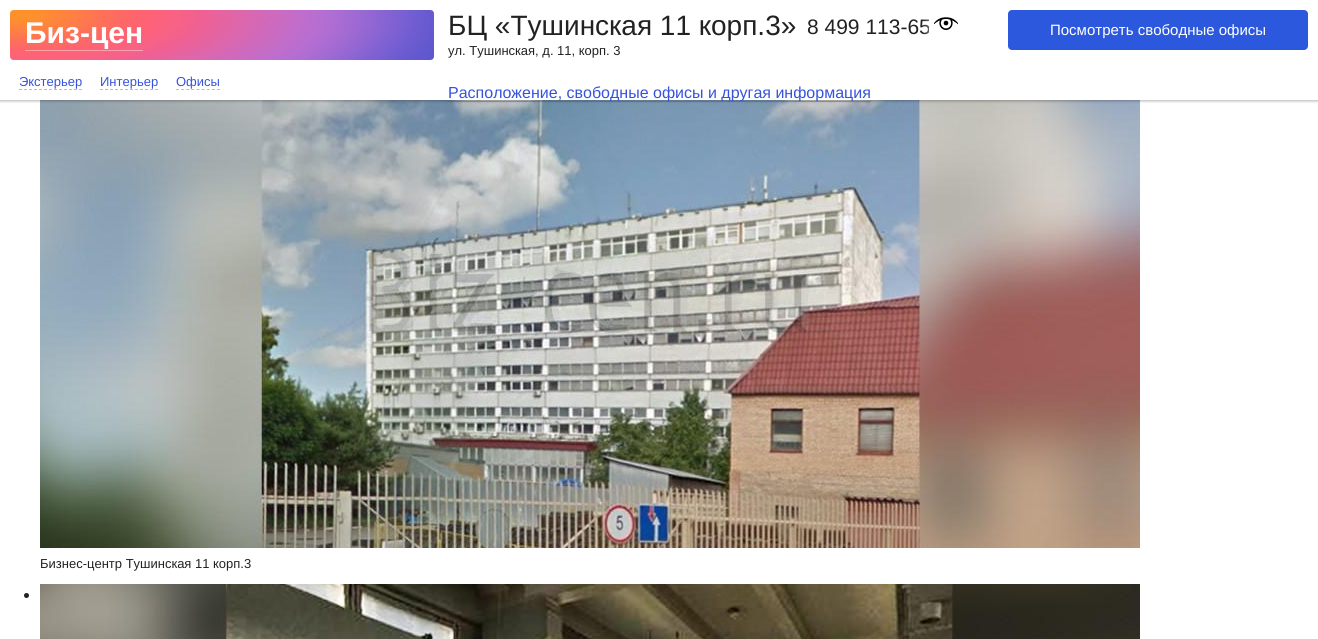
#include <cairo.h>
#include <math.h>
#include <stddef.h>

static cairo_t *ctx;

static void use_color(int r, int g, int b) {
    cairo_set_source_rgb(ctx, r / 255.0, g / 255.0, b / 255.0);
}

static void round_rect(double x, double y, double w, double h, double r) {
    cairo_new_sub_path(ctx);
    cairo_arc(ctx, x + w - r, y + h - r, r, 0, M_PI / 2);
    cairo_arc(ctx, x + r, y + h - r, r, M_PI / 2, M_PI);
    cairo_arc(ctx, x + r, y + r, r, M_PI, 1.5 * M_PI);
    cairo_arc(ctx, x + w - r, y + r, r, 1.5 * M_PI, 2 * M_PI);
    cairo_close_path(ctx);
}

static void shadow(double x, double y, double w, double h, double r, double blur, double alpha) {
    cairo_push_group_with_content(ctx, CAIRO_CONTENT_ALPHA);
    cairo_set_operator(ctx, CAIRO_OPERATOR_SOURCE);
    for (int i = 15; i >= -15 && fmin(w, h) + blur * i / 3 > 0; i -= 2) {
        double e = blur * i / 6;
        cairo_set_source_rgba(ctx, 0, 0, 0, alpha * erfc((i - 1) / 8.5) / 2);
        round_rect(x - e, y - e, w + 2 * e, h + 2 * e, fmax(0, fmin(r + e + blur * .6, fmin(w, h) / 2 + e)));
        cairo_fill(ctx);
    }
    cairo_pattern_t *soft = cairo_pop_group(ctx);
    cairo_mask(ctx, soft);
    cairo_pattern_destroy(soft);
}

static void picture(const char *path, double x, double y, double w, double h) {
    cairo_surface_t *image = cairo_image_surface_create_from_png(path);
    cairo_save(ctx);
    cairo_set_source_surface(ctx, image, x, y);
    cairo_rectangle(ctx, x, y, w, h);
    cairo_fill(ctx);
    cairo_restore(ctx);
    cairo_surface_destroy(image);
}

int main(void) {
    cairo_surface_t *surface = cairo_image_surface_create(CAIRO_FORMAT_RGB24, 1318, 639);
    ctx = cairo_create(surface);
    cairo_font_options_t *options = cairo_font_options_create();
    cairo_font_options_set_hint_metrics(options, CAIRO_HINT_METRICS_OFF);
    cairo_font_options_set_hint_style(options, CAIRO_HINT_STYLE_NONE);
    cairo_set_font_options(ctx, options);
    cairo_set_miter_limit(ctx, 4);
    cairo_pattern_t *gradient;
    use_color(255, 255, 255);
    cairo_paint(ctx);
    picture("img3.png", 40, 100, 1100, 448);
    use_color(0, 0, 0);
    shadow(-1, -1, 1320, 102, 0, 1.5, 0.3);
    use_color(255, 255, 255);
    cairo_rectangle(ctx, 0, 0, 1318, 100);
    cairo_fill(ctx);
    picture("img1.png", 10, 10, 424, 50);
    cairo_select_font_face(ctx, "Liberation Sans", CAIRO_FONT_SLANT_NORMAL, CAIRO_FONT_WEIGHT_BOLD);
    cairo_set_font_size(ctx, 30);
    cairo_move_to(ctx, 25, 43);
    cairo_show_text(ctx, "Биз-цен");
    cairo_set_source_rgba(ctx, 1, 1, 1, 0.4);
    cairo_rectangle(ctx, 25, 50, 118, 1);
    cairo_fill(ctx);
    cairo_select_font_face(ctx, "Liberation Sans", CAIRO_FONT_SLANT_NORMAL, CAIRO_FONT_WEIGHT_NORMAL);
    cairo_set_font_size(ctx, 28);
    use_color(34, 34, 34);
    cairo_move_to(ctx, 448, 35);
    cairo_show_text(ctx, "БЦ «Тушинская 11 корп.3»");
    cairo_set_font_size(ctx, 21);
    cairo_move_to(ctx, 807, 34);
    cairo_show_text(ctx, "8 499 113-65");
    gradient = cairo_pattern_create_linear(912, 29, 962, 29);
    cairo_pattern_add_color_stop_rgba(gradient, 0.2, 1, 1, 1, 0);
    cairo_pattern_add_color_stop_rgba(gradient, 0.7, 1, 1, 1, 1);
    cairo_set_source(ctx, gradient);
    cairo_pattern_destroy(gradient);
    cairo_rectangle(ctx, 923, 19, 7, 16);
    cairo_fill(ctx);
    use_color(255, 255, 255);
    cairo_rectangle(ctx, 929, 19, 1, 14);
    cairo_fill(ctx);
    picture("img2.png", 934, 17, 24, 13);
    use_color(44, 88, 221);
    round_rect(1008, 10, 300, 40, 4);
    cairo_fill(ctx);
    cairo_set_font_size(ctx, 15);
    use_color(255, 255, 255);
    cairo_move_to(ctx, 1050, 35);
    cairo_show_text(ctx, "Посмотреть свободные офисы");
    cairo_set_font_size(ctx, 13);
    use_color(34, 34, 34);
    cairo_move_to(ctx, 448, 55);
    cairo_show_text(ctx, "ул. Тушинская, д. 11, корп. 3");
    cairo_set_source_rgba(ctx, 0.212, 0.325, 0.859, 0.4);
    cairo_rectangle(ctx, 448, 101, 423, 1);
    cairo_fill(ctx);
    cairo_set_font_size(ctx, 16);
    use_color(54, 83, 219);
    cairo_move_to(ctx, 448, 98);
    cairo_show_text(ctx, "Расположение, свободные офисы и другая информация");
    cairo_set_font_size(ctx, 13);
    cairo_move_to(ctx, 19, 86);
    cairo_show_text(ctx, "Экстерьер");
    cairo_new_path(ctx);
    cairo_move_to(ctx, 19, 89.5);
    cairo_line_to(ctx, 82, 89.5);
    use_color(171, 187, 245);
    cairo_set_line_width(ctx, 1);
    cairo_set_dash(ctx, (double[]){3, 2}, 2, 0);
    cairo_stroke(ctx);
    use_color(54, 83, 219);
    cairo_move_to(ctx, 100, 86);
    cairo_show_text(ctx, "Интерьер");
    cairo_new_path(ctx);
    cairo_move_to(ctx, 100, 89.5);
    cairo_line_to(ctx, 158, 89.5);
    use_color(171, 187, 245);
    cairo_stroke(ctx);
    use_color(54, 83, 219);
    cairo_move_to(ctx, 176, 86);
    cairo_show_text(ctx, "Офисы");
    cairo_new_path(ctx);
    cairo_move_to(ctx, 176, 89.5);
    cairo_line_to(ctx, 220, 89.5);
    use_color(171, 187, 245);
    cairo_set_dash(ctx, (double[]){3, 2.12}, 2, 0);
    cairo_stroke(ctx);
    use_color(34, 34, 34);
    cairo_move_to(ctx, 40, 568);
    cairo_show_text(ctx, "Бизнес-центр Тушинская 11 корп.3");
    cairo_new_path(ctx);
    cairo_arc(ctx, 26.5, 595.5, 2.5, 0, 2 * M_PI);
    cairo_fill(ctx);
    picture("img4.png", 40, 584, 1100, 55);
    cairo_surface_write_to_png(surface, "result.png");
    cairo_font_options_destroy(options);
    cairo_destroy(ctx);
    cairo_surface_destroy(surface);
    return 0;
}
